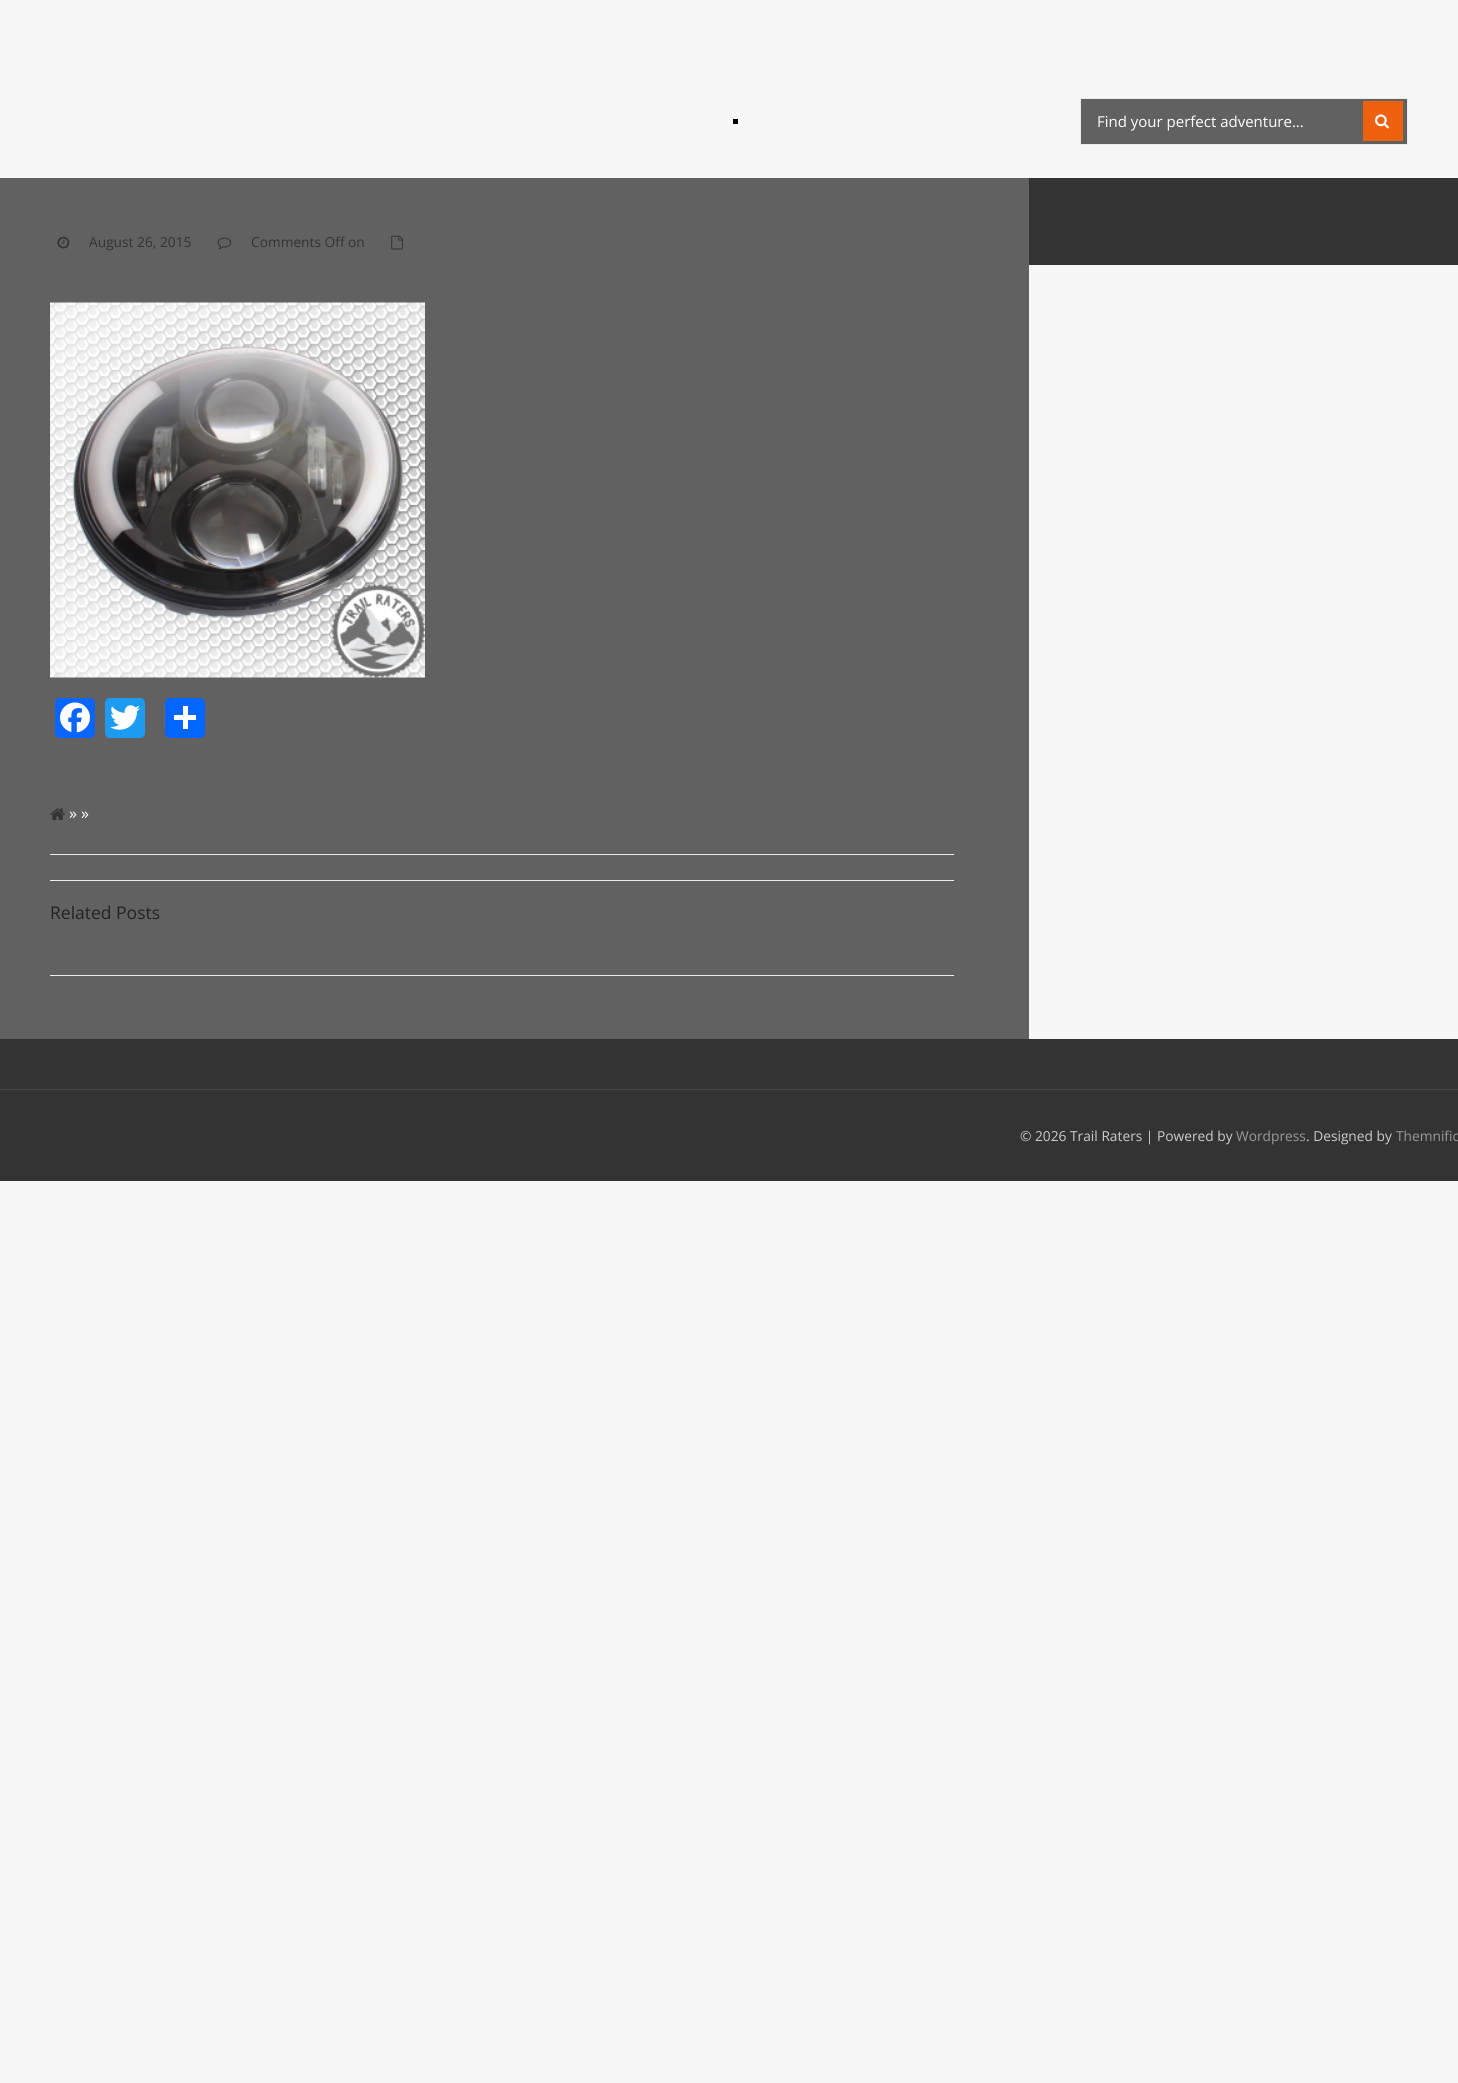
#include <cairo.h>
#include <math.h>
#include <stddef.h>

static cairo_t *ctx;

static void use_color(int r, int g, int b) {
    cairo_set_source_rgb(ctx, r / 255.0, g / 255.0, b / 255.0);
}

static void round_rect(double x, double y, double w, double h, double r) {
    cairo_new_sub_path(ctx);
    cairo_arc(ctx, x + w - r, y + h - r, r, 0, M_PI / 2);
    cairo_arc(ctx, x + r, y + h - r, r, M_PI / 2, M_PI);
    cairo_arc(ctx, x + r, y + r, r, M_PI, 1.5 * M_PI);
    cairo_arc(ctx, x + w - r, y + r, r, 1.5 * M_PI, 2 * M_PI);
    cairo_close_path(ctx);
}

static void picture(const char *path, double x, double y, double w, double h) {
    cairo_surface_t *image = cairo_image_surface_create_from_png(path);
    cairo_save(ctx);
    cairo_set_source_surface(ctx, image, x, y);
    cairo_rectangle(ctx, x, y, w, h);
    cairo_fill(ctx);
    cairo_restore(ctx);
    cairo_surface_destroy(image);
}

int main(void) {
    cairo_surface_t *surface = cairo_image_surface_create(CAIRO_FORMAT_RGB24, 1458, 2083);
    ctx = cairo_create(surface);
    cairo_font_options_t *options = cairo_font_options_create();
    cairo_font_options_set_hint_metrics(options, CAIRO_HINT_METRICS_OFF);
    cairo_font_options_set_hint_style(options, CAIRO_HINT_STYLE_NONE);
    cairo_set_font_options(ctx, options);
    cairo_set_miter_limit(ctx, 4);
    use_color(247, 247, 247);
    cairo_paint(ctx);
    use_color(0, 0, 0);
    cairo_rectangle(ctx, 733, 119, 5, 5);
    cairo_fill(ctx);
    use_color(97, 97, 97);
    cairo_rectangle(ctx, 1080.5, 98.5, 327, 46);
    cairo_fill_preserve(ctx);
    use_color(235, 235, 235);
    cairo_set_line_width(ctx, 1);
    cairo_stroke(ctx);
    cairo_select_font_face(ctx, "Open Sans", CAIRO_FONT_SLANT_NORMAL, CAIRO_FONT_WEIGHT_NORMAL);
    cairo_set_font_size(ctx, 15);
    use_color(255, 255, 255);
    cairo_move_to(ctx, 1097, 127);
    cairo_show_text(ctx, "Find your perfect adventure...");
    use_color(239, 97, 15);
    cairo_rectangle(ctx, 1363, 101, 40, 40);
    cairo_fill(ctx);
    picture("img1.png", 1375, 114, 14, 15);
    use_color(51, 51, 51);
    cairo_rectangle(ctx, 1029, 178, 429, 87);
    cairo_fill(ctx);
    use_color(97, 97, 97);
    cairo_rectangle(ctx, 0, 178, 1029, 861);
    cairo_fill(ctx);
    picture("img2.png", 57, 236, 13, 13);
    cairo_set_font_size(ctx, 13.75);
    use_color(51, 51, 51);
    cairo_move_to(ctx, 89, 247);
    cairo_show_text(ctx, "August 26, 2015");
    picture("img3.png", 217, 237, 15, 13);
    cairo_move_to(ctx, 251, 247);
    cairo_show_text(ctx, "Comments Off on");
    picture("img4.png", 391, 235, 12, 15);
    picture("img5.png", 50, 302, 375, 376);
    use_color(8, 102, 255);
    round_rect(55, 698, 40, 40, 5);
    cairo_fill(ctx);
    picture("img6.png", 60, 702, 30, 31);
    use_color(29, 155, 240);
    round_rect(105, 698, 40, 40, 5);
    cairo_fill(ctx);
    picture("img7.png", 110, 705, 30, 25);
    use_color(1, 102, 255);
    round_rect(165, 698, 40, 40, 5);
    cairo_fill(ctx);
    use_color(255, 255, 255);
    cairo_rectangle(ctx, 183, 706, 5, 23);
    cairo_fill(ctx);
    cairo_rectangle(ctx, 174, 715, 22, 5);
    cairo_fill(ctx);
    picture("img8.png", 50, 808, 15, 12);
    cairo_set_font_size(ctx, 16);
    cairo_move_to(ctx, 69, 819);
    cairo_show_text(ctx, "» »");
    use_color(235, 235, 235);
    cairo_rectangle(ctx, 50, 854, 904, 1);
    cairo_fill(ctx);
    cairo_rectangle(ctx, 50, 880, 904, 1);
    cairo_fill(ctx);
    cairo_set_font_size(ctx, 17.5);
    use_color(34, 34, 34);
    cairo_move_to(ctx, 50, 919);
    cairo_show_text(ctx, "Related Posts");
    use_color(235, 235, 235);
    cairo_rectangle(ctx, 50, 975, 904, 1);
    cairo_fill(ctx);
    use_color(51, 51, 51);
    cairo_rectangle(ctx, 0, 1039, 1458, 142);
    cairo_fill(ctx);
    use_color(68, 68, 68);
    cairo_rectangle(ctx, 0, 1089, 1458, 1);
    cairo_fill(ctx);
    cairo_set_font_size(ctx, 13.75);
    use_color(204, 204, 204);
    cairo_move_to(ctx, 1020, 1141);
    cairo_show_text(ctx, "© 2026 Trail Raters | Powered by");
    use_color(153, 153, 153);
    cairo_move_to(ctx, 1236, 1141);
    cairo_show_text(ctx, "Wordpress");
    use_color(204, 204, 204);
    cairo_move_to(ctx, 1306, 1141);
    cairo_show_text(ctx, ". Designed by");
    use_color(153, 153, 153);
    cairo_move_to(ctx, 1396, 1141);
    cairo_show_text(ctx, "Themnific");
    cairo_surface_write_to_png(surface, "result.png");
    cairo_font_options_destroy(options);
    cairo_destroy(ctx);
    cairo_surface_destroy(surface);
    return 0;
}
